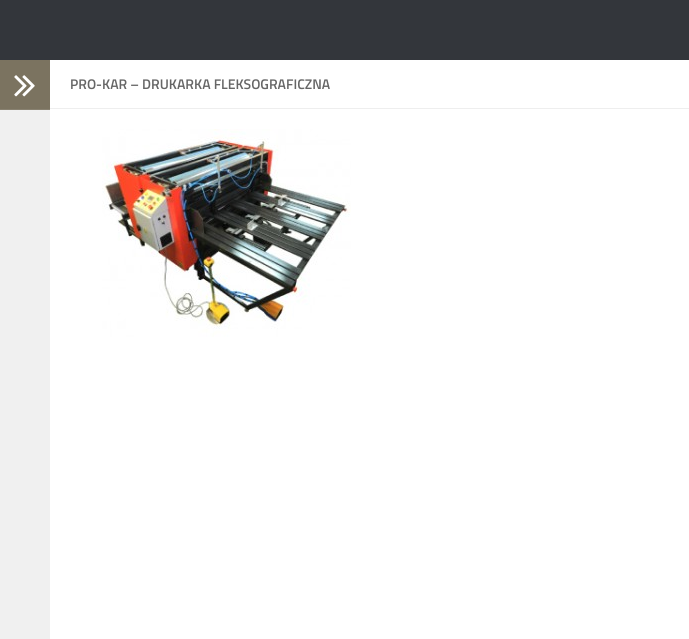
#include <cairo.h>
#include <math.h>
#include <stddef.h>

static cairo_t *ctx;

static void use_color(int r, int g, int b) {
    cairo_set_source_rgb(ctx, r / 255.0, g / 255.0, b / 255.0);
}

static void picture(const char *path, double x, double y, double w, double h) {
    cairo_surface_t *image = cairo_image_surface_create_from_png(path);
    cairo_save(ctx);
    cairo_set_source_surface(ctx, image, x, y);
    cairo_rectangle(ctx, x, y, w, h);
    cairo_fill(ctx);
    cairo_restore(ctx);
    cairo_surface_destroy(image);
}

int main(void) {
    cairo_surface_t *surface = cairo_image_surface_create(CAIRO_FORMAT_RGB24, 689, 639);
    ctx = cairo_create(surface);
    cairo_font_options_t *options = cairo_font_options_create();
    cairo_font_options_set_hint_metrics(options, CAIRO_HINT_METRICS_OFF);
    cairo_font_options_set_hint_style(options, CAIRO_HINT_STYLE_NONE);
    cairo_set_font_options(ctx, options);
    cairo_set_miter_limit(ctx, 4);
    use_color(255, 255, 255);
    cairo_paint(ctx);
    use_color(51, 54, 59);
    cairo_rectangle(ctx, 0, 0, 689, 60);
    cairo_fill(ctx);
    use_color(240, 240, 240);
    cairo_rectangle(ctx, 0, 110, 50, 529);
    cairo_fill(ctx);
    use_color(123, 115, 96);
    cairo_rectangle(ctx, 0, 60, 50, 49);
    cairo_fill(ctx);
    use_color(136, 129, 112);
    cairo_rectangle(ctx, 0, 109, 50, 1);
    cairo_fill(ctx);
    picture("img1.png", 14, 75, 21, 22);
    use_color(238, 238, 238);
    cairo_rectangle(ctx, 50, 108, 639, 1);
    cairo_fill(ctx);
    cairo_select_font_face(ctx, "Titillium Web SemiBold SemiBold", CAIRO_FONT_SLANT_NORMAL, CAIRO_FONT_WEIGHT_NORMAL);
    cairo_set_font_size(ctx, 14);
    use_color(102, 102, 102);
    cairo_move_to(ctx, 70, 89);
    cairo_show_text(ctx, "PRO-KAR – DRUKARKA FLEKSOGRAFICZNA");
    picture("img2.png", 102, 129, 249, 208);
    cairo_surface_write_to_png(surface, "result.png");
    cairo_font_options_destroy(options);
    cairo_destroy(ctx);
    cairo_surface_destroy(surface);
    return 0;
}
